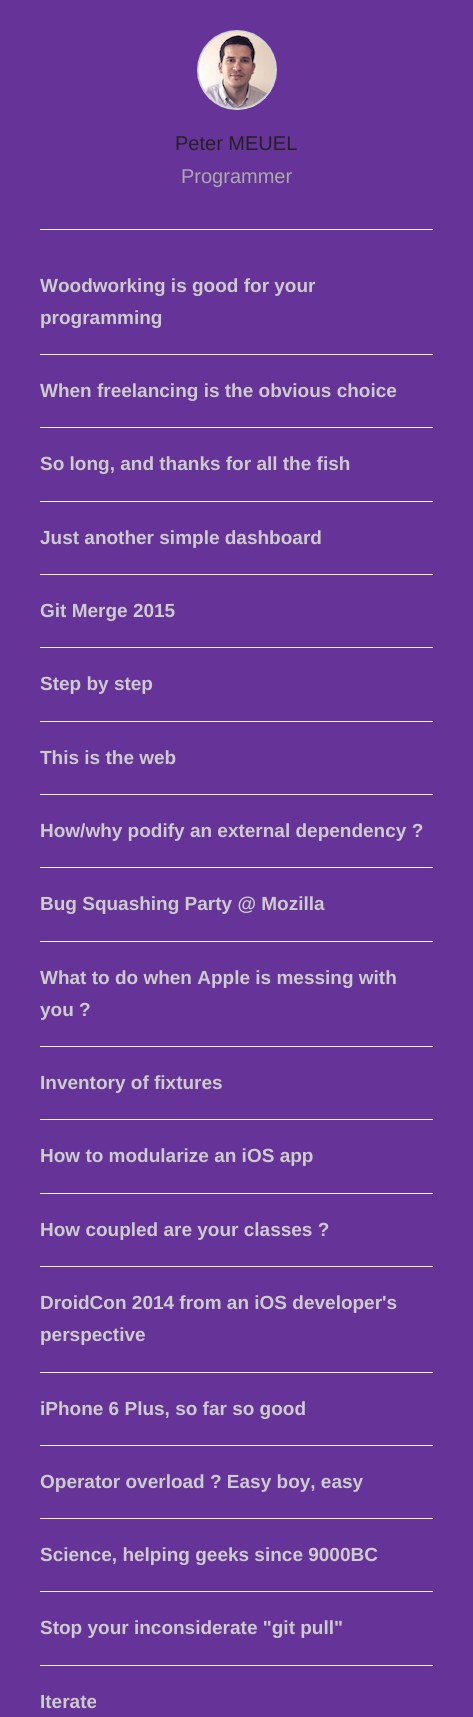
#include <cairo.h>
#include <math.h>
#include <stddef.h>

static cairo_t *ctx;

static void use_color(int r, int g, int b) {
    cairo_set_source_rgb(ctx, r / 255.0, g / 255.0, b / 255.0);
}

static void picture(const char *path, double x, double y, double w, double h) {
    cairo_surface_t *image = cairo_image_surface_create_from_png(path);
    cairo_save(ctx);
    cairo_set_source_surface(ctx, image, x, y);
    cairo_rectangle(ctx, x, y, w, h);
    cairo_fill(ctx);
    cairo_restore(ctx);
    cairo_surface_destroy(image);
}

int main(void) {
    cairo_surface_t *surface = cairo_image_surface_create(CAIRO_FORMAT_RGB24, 473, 1717);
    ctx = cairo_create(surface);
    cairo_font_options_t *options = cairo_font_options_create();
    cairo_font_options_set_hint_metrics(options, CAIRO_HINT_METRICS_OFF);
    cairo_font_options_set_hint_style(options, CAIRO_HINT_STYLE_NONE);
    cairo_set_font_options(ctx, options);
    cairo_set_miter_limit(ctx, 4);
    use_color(102, 51, 153);
    cairo_paint(ctx);
    use_color(238, 238, 238);
    cairo_rectangle(ctx, 40, 229, 393, 1);
    cairo_fill(ctx);
    picture("img1.png", 197, 30, 80, 80);
    cairo_select_font_face(ctx, "Liberation Sans", CAIRO_FONT_SLANT_NORMAL, CAIRO_FONT_WEIGHT_NORMAL);
    cairo_set_font_size(ctx, 20);
    use_color(34, 34, 34);
    cairo_move_to(ctx, 175, 150);
    cairo_show_text(ctx, "Peter MEUEL");
    use_color(170, 170, 170);
    cairo_move_to(ctx, 181, 183);
    cairo_show_text(ctx, "Programmer");
    cairo_select_font_face(ctx, "Liberation Sans", CAIRO_FONT_SLANT_NORMAL, CAIRO_FONT_WEIGHT_BOLD);
    cairo_set_font_size(ctx, 19);
    use_color(204, 204, 204);
    cairo_move_to(ctx, 40, 292);
    cairo_show_text(ctx, "Woodworking is good for your");
    cairo_move_to(ctx, 40, 324);
    cairo_show_text(ctx, "programming");
    use_color(238, 238, 238);
    cairo_rectangle(ctx, 40, 354, 393, 1);
    cairo_fill(ctx);
    use_color(204, 204, 204);
    cairo_move_to(ctx, 40, 397);
    cairo_show_text(ctx, "When freelancing is the obvious choice");
    use_color(238, 238, 238);
    cairo_rectangle(ctx, 40, 427, 393, 1);
    cairo_fill(ctx);
    use_color(204, 204, 204);
    cairo_move_to(ctx, 40, 470);
    cairo_show_text(ctx, "So long, and thanks for all the fish");
    use_color(238, 238, 238);
    cairo_rectangle(ctx, 40, 501, 393, 1);
    cairo_fill(ctx);
    use_color(204, 204, 204);
    cairo_move_to(ctx, 40, 544);
    cairo_show_text(ctx, "Just another simple dashboard");
    use_color(238, 238, 238);
    cairo_rectangle(ctx, 40, 574, 393, 1);
    cairo_fill(ctx);
    use_color(204, 204, 204);
    cairo_move_to(ctx, 40, 617);
    cairo_show_text(ctx, "Git Merge 2015");
    use_color(238, 238, 238);
    cairo_rectangle(ctx, 40, 647, 393, 1);
    cairo_fill(ctx);
    use_color(204, 204, 204);
    cairo_move_to(ctx, 40, 690);
    cairo_show_text(ctx, "Step by step");
    use_color(238, 238, 238);
    cairo_rectangle(ctx, 40, 721, 393, 1);
    cairo_fill(ctx);
    use_color(204, 204, 204);
    cairo_move_to(ctx, 40, 764);
    cairo_show_text(ctx, "This is the web");
    use_color(238, 238, 238);
    cairo_rectangle(ctx, 40, 794, 393, 1);
    cairo_fill(ctx);
    use_color(204, 204, 204);
    cairo_move_to(ctx, 40, 837);
    cairo_show_text(ctx, "How/why podify an external dependency ?");
    use_color(238, 238, 238);
    cairo_rectangle(ctx, 40, 867, 393, 1);
    cairo_fill(ctx);
    use_color(204, 204, 204);
    cairo_move_to(ctx, 40, 910);
    cairo_show_text(ctx, "Bug Squashing Party @ Mozilla");
    use_color(238, 238, 238);
    cairo_rectangle(ctx, 40, 941, 393, 1);
    cairo_fill(ctx);
    use_color(204, 204, 204);
    cairo_move_to(ctx, 40, 984);
    cairo_show_text(ctx, "What to do when Apple is messing with");
    cairo_move_to(ctx, 40, 1016);
    cairo_show_text(ctx, "you ?");
    use_color(238, 238, 238);
    cairo_rectangle(ctx, 40, 1046, 393, 1);
    cairo_fill(ctx);
    use_color(204, 204, 204);
    cairo_move_to(ctx, 40, 1089);
    cairo_show_text(ctx, "Inventory of fixtures");
    use_color(238, 238, 238);
    cairo_rectangle(ctx, 40, 1119, 393, 1);
    cairo_fill(ctx);
    use_color(204, 204, 204);
    cairo_move_to(ctx, 40, 1162);
    cairo_show_text(ctx, "How to modularize an iOS app");
    use_color(238, 238, 238);
    cairo_rectangle(ctx, 40, 1193, 393, 1);
    cairo_fill(ctx);
    use_color(204, 204, 204);
    cairo_move_to(ctx, 40, 1236);
    cairo_show_text(ctx, "How coupled are your classes ?");
    use_color(238, 238, 238);
    cairo_rectangle(ctx, 40, 1266, 393, 1);
    cairo_fill(ctx);
    use_color(204, 204, 204);
    cairo_move_to(ctx, 40, 1309);
    cairo_show_text(ctx, "DroidCon 2014 from an iOS developer's");
    cairo_move_to(ctx, 40, 1341);
    cairo_show_text(ctx, "perspective");
    use_color(238, 238, 238);
    cairo_rectangle(ctx, 40, 1372, 393, 1);
    cairo_fill(ctx);
    use_color(204, 204, 204);
    cairo_move_to(ctx, 40, 1415);
    cairo_show_text(ctx, "iPhone 6 Plus, so far so good");
    use_color(238, 238, 238);
    cairo_rectangle(ctx, 40, 1445, 393, 1);
    cairo_fill(ctx);
    use_color(204, 204, 204);
    cairo_move_to(ctx, 40, 1488);
    cairo_show_text(ctx, "Operator overload ? Easy boy, easy");
    use_color(238, 238, 238);
    cairo_rectangle(ctx, 40, 1518, 393, 1);
    cairo_fill(ctx);
    use_color(204, 204, 204);
    cairo_move_to(ctx, 40, 1561);
    cairo_show_text(ctx, "Science, helping geeks since 9000BC");
    use_color(238, 238, 238);
    cairo_rectangle(ctx, 40, 1591, 393, 1);
    cairo_fill(ctx);
    use_color(204, 204, 204);
    cairo_move_to(ctx, 40, 1634);
    cairo_show_text(ctx, "Stop your inconsiderate \"git pull\"");
    use_color(238, 238, 238);
    cairo_rectangle(ctx, 40, 1665, 393, 1);
    cairo_fill(ctx);
    use_color(204, 204, 204);
    cairo_move_to(ctx, 40, 1708);
    cairo_show_text(ctx, "Iterate");
    cairo_surface_write_to_png(surface, "result.png");
    cairo_font_options_destroy(options);
    cairo_destroy(ctx);
    cairo_surface_destroy(surface);
    return 0;
}
